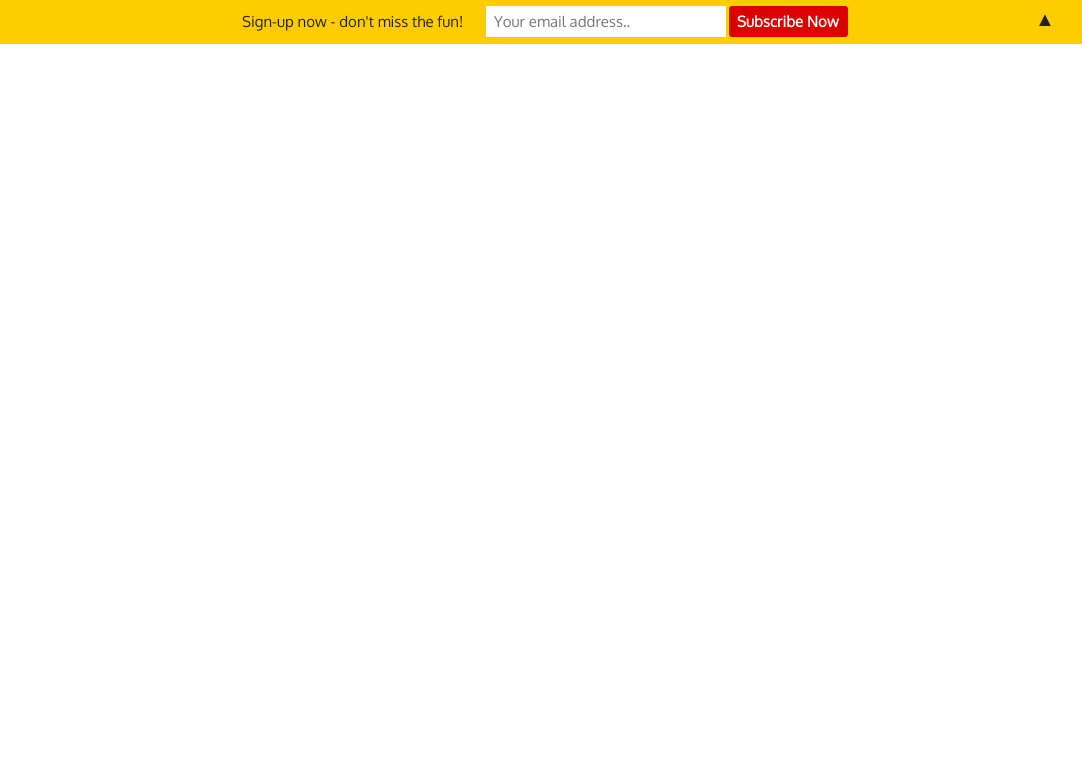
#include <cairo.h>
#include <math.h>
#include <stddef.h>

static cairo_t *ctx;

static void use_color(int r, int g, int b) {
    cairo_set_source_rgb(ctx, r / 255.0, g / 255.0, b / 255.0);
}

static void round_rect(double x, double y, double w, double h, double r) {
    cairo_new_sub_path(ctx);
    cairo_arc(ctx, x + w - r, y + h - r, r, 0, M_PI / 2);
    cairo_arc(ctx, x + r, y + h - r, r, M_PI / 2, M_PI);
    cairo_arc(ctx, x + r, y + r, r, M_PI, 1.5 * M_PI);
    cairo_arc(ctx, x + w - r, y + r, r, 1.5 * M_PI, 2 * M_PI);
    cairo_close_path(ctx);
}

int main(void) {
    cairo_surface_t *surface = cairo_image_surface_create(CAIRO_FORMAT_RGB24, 1082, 770);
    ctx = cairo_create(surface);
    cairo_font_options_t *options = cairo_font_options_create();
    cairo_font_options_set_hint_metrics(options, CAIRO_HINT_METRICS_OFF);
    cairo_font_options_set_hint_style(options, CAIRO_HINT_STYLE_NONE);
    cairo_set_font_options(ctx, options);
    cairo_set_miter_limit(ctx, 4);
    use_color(255, 255, 255);
    cairo_paint(ctx);
    use_color(255, 204, 0);
    cairo_rectangle(ctx, 0, 0, 1082, 44);
    cairo_fill(ctx);
    cairo_select_font_face(ctx, "Oxygen", CAIRO_FONT_SLANT_NORMAL, CAIRO_FONT_WEIGHT_NORMAL);
    cairo_set_font_size(ctx, 15);
    use_color(34, 34, 34);
    cairo_move_to(ctx, 242, 27);
    cairo_show_text(ctx, "Sign-up now - don't miss the fun!");
    use_color(255, 255, 255);
    cairo_rectangle(ctx, 486, 6, 240, 31);
    cairo_fill(ctx);
    use_color(117, 117, 117);
    cairo_move_to(ctx, 494, 27);
    cairo_show_text(ctx, "Your email address..");
    use_color(221, 2, 2);
    round_rect(729.5, 6.5, 118, 30, 2.5);
    cairo_fill_preserve(ctx);
    cairo_set_line_width(ctx, 1);
    cairo_stroke(ctx);
    cairo_select_font_face(ctx, "Oxygen", CAIRO_FONT_SLANT_NORMAL, CAIRO_FONT_WEIGHT_BOLD);
    use_color(255, 255, 255);
    cairo_move_to(ctx, 737, 27);
    cairo_show_text(ctx, "Subscribe Now");
    cairo_select_font_face(ctx, "Liberation Sans", CAIRO_FONT_SLANT_NORMAL, CAIRO_FONT_WEIGHT_NORMAL);
    cairo_set_font_size(ctx, 20);
    use_color(34, 34, 34);
    cairo_move_to(ctx, 1035, 26);
    cairo_show_text(ctx, "▲");
    cairo_surface_write_to_png(surface, "result.png");
    cairo_font_options_destroy(options);
    cairo_destroy(ctx);
    cairo_surface_destroy(surface);
    return 0;
}
